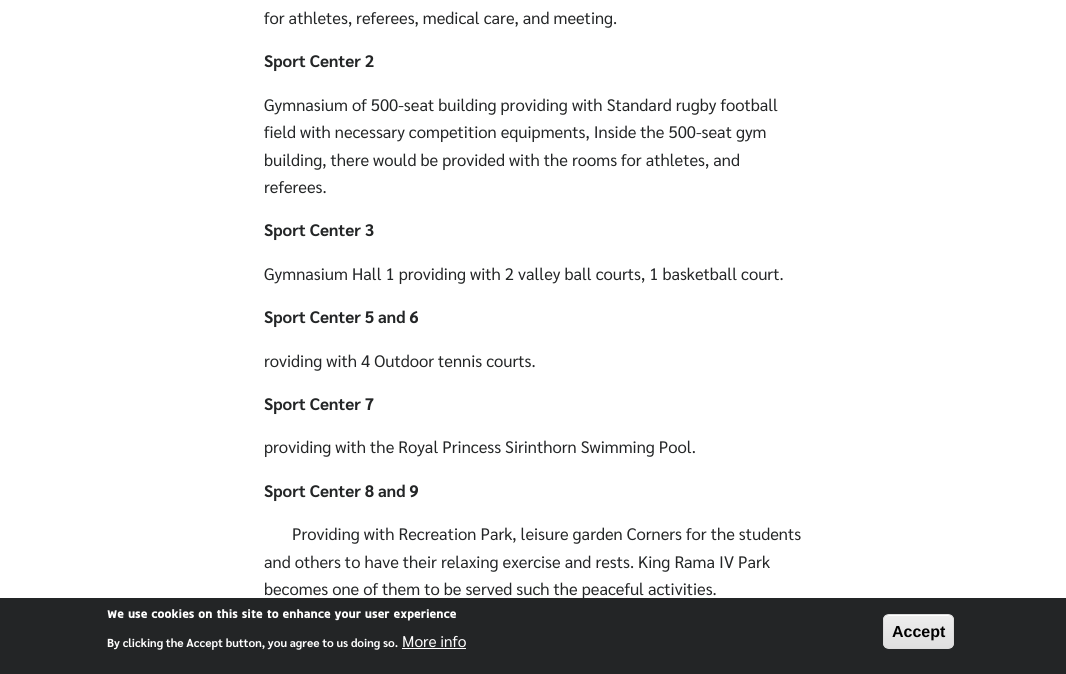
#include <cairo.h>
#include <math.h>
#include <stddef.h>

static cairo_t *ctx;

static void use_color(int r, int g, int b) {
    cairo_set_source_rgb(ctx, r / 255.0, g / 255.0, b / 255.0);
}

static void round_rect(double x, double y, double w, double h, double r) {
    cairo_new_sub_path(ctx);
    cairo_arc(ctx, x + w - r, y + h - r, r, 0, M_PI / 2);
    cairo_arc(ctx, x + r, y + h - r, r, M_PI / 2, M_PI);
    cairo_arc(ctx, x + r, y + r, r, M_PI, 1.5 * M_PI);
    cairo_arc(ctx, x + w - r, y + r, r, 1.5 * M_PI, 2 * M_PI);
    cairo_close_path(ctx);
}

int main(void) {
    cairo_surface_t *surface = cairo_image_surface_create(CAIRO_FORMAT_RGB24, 1066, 674);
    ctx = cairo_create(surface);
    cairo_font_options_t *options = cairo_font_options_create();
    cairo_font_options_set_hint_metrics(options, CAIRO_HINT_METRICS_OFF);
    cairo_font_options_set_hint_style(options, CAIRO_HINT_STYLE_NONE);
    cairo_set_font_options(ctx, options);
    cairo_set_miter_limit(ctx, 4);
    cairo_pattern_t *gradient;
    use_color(255, 255, 255);
    cairo_paint(ctx);
    cairo_select_font_face(ctx, "Sarabun", CAIRO_FONT_SLANT_NORMAL, CAIRO_FONT_WEIGHT_NORMAL);
    cairo_set_font_size(ctx, 17.15);
    use_color(35, 37, 38);
    cairo_move_to(ctx, 264, 24);
    cairo_show_text(ctx, "for athletes, referees, medical care, and meeting.");
    cairo_select_font_face(ctx, "Sarabun", CAIRO_FONT_SLANT_NORMAL, CAIRO_FONT_WEIGHT_BOLD);
    cairo_move_to(ctx, 264, 67);
    cairo_show_text(ctx, "Sport Center 2");
    cairo_select_font_face(ctx, "Sarabun", CAIRO_FONT_SLANT_NORMAL, CAIRO_FONT_WEIGHT_NORMAL);
    cairo_move_to(ctx, 264, 111);
    cairo_show_text(ctx, "Gymnasium of 500-seat building providing with Standard rugby football");
    cairo_move_to(ctx, 264, 138);
    cairo_show_text(ctx, "field with necessary competition equipments, Inside the 500-seat gym");
    cairo_move_to(ctx, 264, 166);
    cairo_show_text(ctx, "building, there would be provided with the rooms for athletes, and");
    cairo_move_to(ctx, 264, 193);
    cairo_show_text(ctx, "referees.");
    cairo_select_font_face(ctx, "Sarabun", CAIRO_FONT_SLANT_NORMAL, CAIRO_FONT_WEIGHT_BOLD);
    cairo_move_to(ctx, 264, 236);
    cairo_show_text(ctx, "Sport Center 3");
    cairo_select_font_face(ctx, "Sarabun", CAIRO_FONT_SLANT_NORMAL, CAIRO_FONT_WEIGHT_NORMAL);
    cairo_move_to(ctx, 264, 280);
    cairo_show_text(ctx, "Gymnasium Hall 1 providing with 2 valley ball courts, 1 basketball court.");
    cairo_select_font_face(ctx, "Sarabun", CAIRO_FONT_SLANT_NORMAL, CAIRO_FONT_WEIGHT_BOLD);
    cairo_move_to(ctx, 264, 323);
    cairo_show_text(ctx, "Sport Center 5 and 6");
    cairo_select_font_face(ctx, "Sarabun", CAIRO_FONT_SLANT_NORMAL, CAIRO_FONT_WEIGHT_NORMAL);
    cairo_move_to(ctx, 264, 367);
    cairo_show_text(ctx, "roviding with 4 Outdoor tennis courts.");
    cairo_select_font_face(ctx, "Sarabun", CAIRO_FONT_SLANT_NORMAL, CAIRO_FONT_WEIGHT_BOLD);
    cairo_move_to(ctx, 264, 410);
    cairo_show_text(ctx, "Sport Center 7");
    cairo_select_font_face(ctx, "Sarabun", CAIRO_FONT_SLANT_NORMAL, CAIRO_FONT_WEIGHT_NORMAL);
    cairo_move_to(ctx, 264, 453);
    cairo_show_text(ctx, "providing with the Royal Princess Sirinthorn Swimming Pool.");
    cairo_select_font_face(ctx, "Sarabun", CAIRO_FONT_SLANT_NORMAL, CAIRO_FONT_WEIGHT_BOLD);
    cairo_move_to(ctx, 264, 497);
    cairo_show_text(ctx, "Sport Center 8 and 9");
    cairo_select_font_face(ctx, "Sarabun", CAIRO_FONT_SLANT_NORMAL, CAIRO_FONT_WEIGHT_NORMAL);
    cairo_move_to(ctx, 292, 540);
    cairo_show_text(ctx, "Providing with Recreation Park, leisure garden Corners for the students");
    cairo_move_to(ctx, 264, 568);
    cairo_show_text(ctx, "and others to have their relaxing exercise and rests. King Rama IV Park");
    cairo_move_to(ctx, 264, 595);
    cairo_show_text(ctx, "becomes one of them to be served such the peaceful activities.");
    cairo_rectangle(ctx, 0, 598, 1066, 76);
    cairo_fill(ctx);
    cairo_select_font_face(ctx, "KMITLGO", CAIRO_FONT_SLANT_NORMAL, CAIRO_FONT_WEIGHT_BOLD);
    cairo_set_font_size(ctx, 16);
    use_color(255, 255, 255);
    cairo_move_to(ctx, 107, 618);
    cairo_show_text(ctx, "We use cookies on this site to enhance your user experience");
    cairo_select_font_face(ctx, "Sarabun", CAIRO_FONT_SLANT_NORMAL, CAIRO_FONT_WEIGHT_BOLD);
    cairo_set_font_size(ctx, 12);
    cairo_move_to(ctx, 107, 647);
    cairo_show_text(ctx, "By clicking the Accept button, you agree to us doing so.");
    cairo_select_font_face(ctx, "Sarabun", CAIRO_FONT_SLANT_NORMAL, CAIRO_FONT_WEIGHT_NORMAL);
    cairo_set_font_size(ctx, 16);
    cairo_move_to(ctx, 402, 647);
    cairo_show_text(ctx, "More info");
    cairo_rectangle(ctx, 402, 648, 64, 1);
    cairo_fill(ctx);
    cairo_save(ctx);
    round_rect(883, 614, 71, 35, 6);
    cairo_clip(ctx);
    gradient = cairo_pattern_create_linear(919, 615, 919, 648);
    cairo_pattern_add_color_stop_rgba(gradient, 0.05, 0.929, 0.929, 0.929, 1);
    cairo_pattern_add_color_stop_rgba(gradient, 1, 0.875, 0.875, 0.875, 1);
    cairo_set_source(ctx, gradient);
    cairo_pattern_destroy(gradient);
    cairo_rectangle(ctx, 883, 615, 71, 33);
    cairo_fill(ctx);
    cairo_restore(ctx);
    cairo_new_path(ctx);
    cairo_move_to(ctx, 889, 616);
    cairo_line_to(ctx, 948, 616);
    cairo_curve_to(ctx, 951, 616, 953, 618, 953, 621);
    cairo_curve_to(ctx, 953, 613, 944, 615, 938, 615);
    cairo_line_to(ctx, 899, 615);
    cairo_curve_to(ctx, 893, 615, 884, 613, 884, 621);
    cairo_curve_to(ctx, 884, 618, 886, 616, 889, 616);
    cairo_close_path(ctx);
    cairo_fill(ctx);
    round_rect(883.5, 614.5, 70, 34, 5.5);
    use_color(220, 220, 220);
    cairo_set_line_width(ctx, 1);
    cairo_stroke(ctx);
    cairo_select_font_face(ctx, "Liberation Sans", CAIRO_FONT_SLANT_NORMAL, CAIRO_FONT_WEIGHT_BOLD);
    use_color(0, 0, 0);
    cairo_move_to(ctx, 892, 637);
    cairo_show_text(ctx, "Accept");
    cairo_surface_write_to_png(surface, "result.png");
    cairo_font_options_destroy(options);
    cairo_destroy(ctx);
    cairo_surface_destroy(surface);
    return 0;
}
